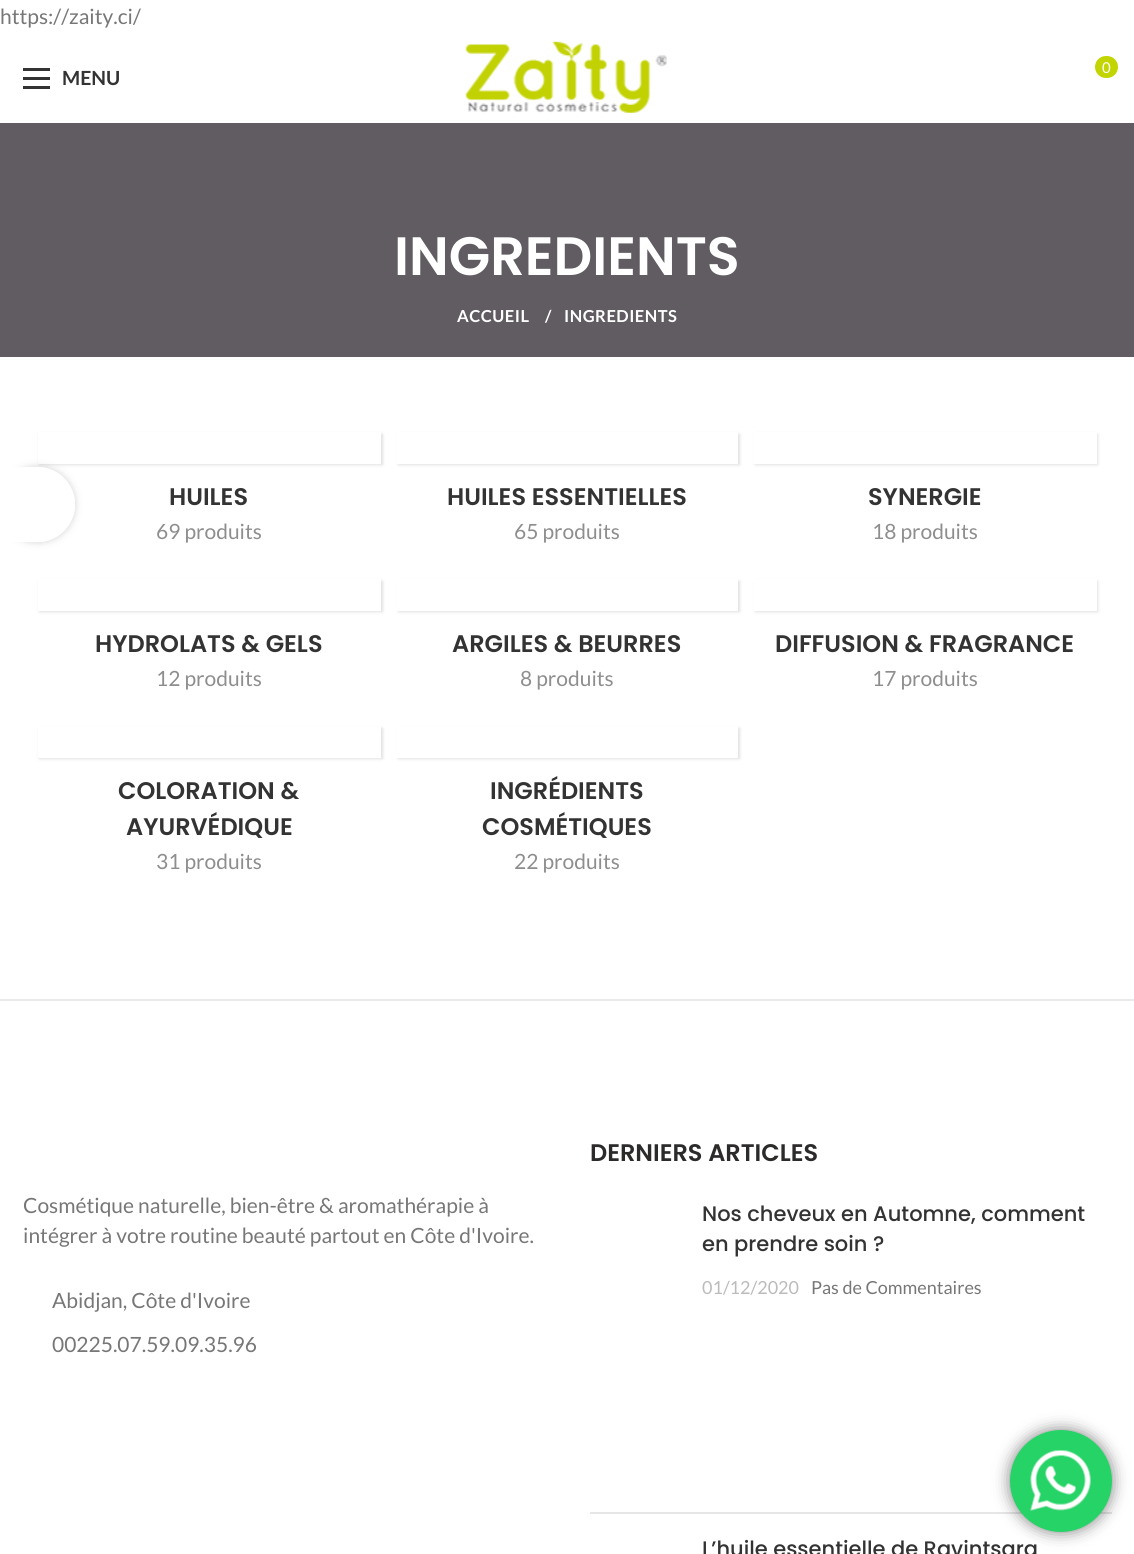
#include <cairo.h>
#include <math.h>
#include <stddef.h>

static cairo_t *ctx;

static void use_color(int r, int g, int b) {
    cairo_set_source_rgb(ctx, r / 255.0, g / 255.0, b / 255.0);
}

static void spaced_text(double x, double y, const char *s, double letter, double word) {
    cairo_move_to(ctx, x, y);
    while (*s) {
        char ch[5] = {0};
        int n = 0;
        do ch[n++] = *s++; while ((*s & 0xC0) == 0x80);
        cairo_show_text(ctx, ch);
        cairo_rel_move_to(ctx, letter + word * (*ch == ' '), 0);
    }
}

static void round_rect(double x, double y, double w, double h, double r) {
    cairo_new_sub_path(ctx);
    cairo_arc(ctx, x + w - r, y + h - r, r, 0, M_PI / 2);
    cairo_arc(ctx, x + r, y + h - r, r, M_PI / 2, M_PI);
    cairo_arc(ctx, x + r, y + r, r, M_PI, 1.5 * M_PI);
    cairo_arc(ctx, x + w - r, y + r, r, 1.5 * M_PI, 2 * M_PI);
    cairo_close_path(ctx);
}

static void shadow(double x, double y, double w, double h, double r, double blur, double alpha) {
    cairo_push_group_with_content(ctx, CAIRO_CONTENT_ALPHA);
    cairo_set_operator(ctx, CAIRO_OPERATOR_SOURCE);
    for (int i = 15; i >= -15 && fmin(w, h) + blur * i / 3 > 0; i -= 2) {
        double e = blur * i / 6;
        cairo_set_source_rgba(ctx, 0, 0, 0, alpha * erfc((i - 1) / 8.5) / 2);
        round_rect(x - e, y - e, w + 2 * e, h + 2 * e, fmax(0, fmin(r + e + blur * .6, fmin(w, h) / 2 + e)));
        cairo_fill(ctx);
    }
    cairo_pattern_t *soft = cairo_pop_group(ctx);
    cairo_mask(ctx, soft);
    cairo_pattern_destroy(soft);
}

static void picture(const char *path, double x, double y, double w, double h) {
    cairo_surface_t *image = cairo_image_surface_create_from_png(path);
    cairo_save(ctx);
    cairo_set_source_surface(ctx, image, x, y);
    cairo_rectangle(ctx, x, y, w, h);
    cairo_fill(ctx);
    cairo_restore(ctx);
    cairo_surface_destroy(image);
}

int main(void) {
    cairo_surface_t *surface = cairo_image_surface_create(CAIRO_FORMAT_RGB24, 1134, 1554);
    ctx = cairo_create(surface);
    cairo_font_options_t *options = cairo_font_options_create();
    cairo_font_options_set_hint_metrics(options, CAIRO_HINT_METRICS_OFF);
    cairo_font_options_set_hint_style(options, CAIRO_HINT_STYLE_NONE);
    cairo_set_font_options(ctx, options);
    cairo_set_miter_limit(ctx, 4);
    use_color(255, 255, 255);
    cairo_paint(ctx);
    cairo_select_font_face(ctx, "Lato", CAIRO_FONT_SLANT_NORMAL, CAIRO_FONT_WEIGHT_NORMAL);
    cairo_set_font_size(ctx, 21);
    use_color(119, 119, 119);
    cairo_move_to(ctx, 0, 24);
    cairo_show_text(ctx, "https://zaity.ci/");
    picture("img1.png", 465, 41, 202, 72);
    use_color(195, 213, 0);
    round_rect(1095, 56, 23, 22, 11);
    cairo_fill(ctx);
    cairo_set_font_size(ctx, 15);
    use_color(255, 255, 255);
    cairo_move_to(ctx, 1102, 73);
    cairo_show_text(ctx, "0");
    use_color(51, 51, 51);
    cairo_rectangle(ctx, 23, 77, 27, 3);
    cairo_fill(ctx);
    cairo_rectangle(ctx, 23, 68, 27, 3);
    cairo_fill(ctx);
    cairo_rectangle(ctx, 23, 86, 27, 3);
    cairo_fill(ctx);
    cairo_select_font_face(ctx, "Lato", CAIRO_FONT_SLANT_NORMAL, CAIRO_FONT_WEIGHT_BOLD);
    cairo_set_font_size(ctx, 19.5);
    cairo_move_to(ctx, 62, 85);
    cairo_show_text(ctx, "MENU");
    use_color(96, 92, 97);
    cairo_rectangle(ctx, 0, 123, 1134, 234);
    cairo_fill(ctx);
    cairo_select_font_face(ctx, "Poppins SemiBold", CAIRO_FONT_SLANT_NORMAL, CAIRO_FONT_WEIGHT_NORMAL);
    cairo_set_font_size(ctx, 54);
    use_color(255, 255, 255);
    cairo_move_to(ctx, 394, 275);
    cairo_show_text(ctx, "INGREDIENTS");
    cairo_select_font_face(ctx, "Lato", CAIRO_FONT_SLANT_NORMAL, CAIRO_FONT_WEIGHT_BOLD);
    cairo_set_font_size(ctx, 16.5);
    spaced_text(457, 322, "ACCUEIL", 0.5, 0);
    spaced_text(545, 322, "/", 0.5, 0);
    spaced_text(564, 322, "INGREDIENTS", 0.5, 0);
    use_color(234, 234, 234);
    cairo_rectangle(ctx, 0, 999, 1134, 2);
    cairo_fill(ctx);
    cairo_save(ctx);
    cairo_set_fill_rule(ctx, CAIRO_FILL_RULE_EVEN_ODD);
    cairo_new_path(ctx);
    cairo_move_to(ctx, 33, 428);
    cairo_line_to(ctx, 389, 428);
    cairo_line_to(ctx, 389, 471);
    cairo_line_to(ctx, 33, 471);
    cairo_close_path(ctx);
    cairo_move_to(ctx, 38, 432);
    cairo_line_to(ctx, 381, 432);
    cairo_line_to(ctx, 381, 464);
    cairo_line_to(ctx, 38, 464);
    cairo_close_path(ctx);
    cairo_clip(ctx);
    use_color(0, 0, 0);
    shadow(39, 434, 344, 31, 0, 1.5, 0.12);
    cairo_restore(ctx);
    cairo_select_font_face(ctx, "Poppins SemiBold", CAIRO_FONT_SLANT_NORMAL, CAIRO_FONT_WEIGHT_NORMAL);
    cairo_set_font_size(ctx, 24);
    use_color(51, 51, 51);
    cairo_move_to(ctx, 169, 505);
    cairo_show_text(ctx, "HUILES");
    cairo_select_font_face(ctx, "Lato", CAIRO_FONT_SLANT_NORMAL, CAIRO_FONT_WEIGHT_NORMAL);
    cairo_set_font_size(ctx, 21);
    use_color(142, 142, 142);
    cairo_move_to(ctx, 156, 539);
    cairo_show_text(ctx, "69 produits");
    cairo_save(ctx);
    cairo_set_fill_rule(ctx, CAIRO_FILL_RULE_EVEN_ODD);
    cairo_new_path(ctx);
    cairo_move_to(ctx, 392, 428);
    cairo_line_to(ctx, 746, 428);
    cairo_line_to(ctx, 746, 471);
    cairo_line_to(ctx, 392, 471);
    cairo_close_path(ctx);
    cairo_move_to(ctx, 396, 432);
    cairo_line_to(ctx, 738, 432);
    cairo_line_to(ctx, 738, 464);
    cairo_line_to(ctx, 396, 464);
    cairo_close_path(ctx);
    cairo_clip(ctx);
    use_color(0, 0, 0);
    shadow(398, 434, 342, 31, 0, 1.5, 0.12);
    cairo_restore(ctx);
    cairo_select_font_face(ctx, "Poppins SemiBold", CAIRO_FONT_SLANT_NORMAL, CAIRO_FONT_WEIGHT_NORMAL);
    cairo_set_font_size(ctx, 24);
    use_color(51, 51, 51);
    cairo_move_to(ctx, 447, 505);
    cairo_show_text(ctx, "HUILES ESSENTIELLES");
    cairo_select_font_face(ctx, "Lato", CAIRO_FONT_SLANT_NORMAL, CAIRO_FONT_WEIGHT_NORMAL);
    cairo_set_font_size(ctx, 21);
    use_color(142, 142, 142);
    cairo_move_to(ctx, 514, 539);
    cairo_show_text(ctx, "65 produits");
    cairo_save(ctx);
    cairo_set_fill_rule(ctx, CAIRO_FILL_RULE_EVEN_ODD);
    cairo_new_path(ctx);
    cairo_move_to(ctx, 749, 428);
    cairo_line_to(ctx, 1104, 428);
    cairo_line_to(ctx, 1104, 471);
    cairo_line_to(ctx, 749, 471);
    cairo_close_path(ctx);
    cairo_move_to(ctx, 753, 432);
    cairo_line_to(ctx, 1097, 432);
    cairo_line_to(ctx, 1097, 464);
    cairo_line_to(ctx, 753, 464);
    cairo_close_path(ctx);
    cairo_clip(ctx);
    use_color(0, 0, 0);
    shadow(755, 434, 343, 31, 0, 1.5, 0.12);
    cairo_restore(ctx);
    cairo_select_font_face(ctx, "Poppins SemiBold", CAIRO_FONT_SLANT_NORMAL, CAIRO_FONT_WEIGHT_NORMAL);
    cairo_set_font_size(ctx, 24);
    use_color(51, 51, 51);
    cairo_move_to(ctx, 868, 505);
    cairo_show_text(ctx, "SYNERGIE");
    cairo_select_font_face(ctx, "Lato", CAIRO_FONT_SLANT_NORMAL, CAIRO_FONT_WEIGHT_NORMAL);
    cairo_set_font_size(ctx, 21);
    use_color(142, 142, 142);
    cairo_move_to(ctx, 872, 539);
    cairo_show_text(ctx, "18 produits");
    cairo_save(ctx);
    cairo_set_fill_rule(ctx, CAIRO_FILL_RULE_EVEN_ODD);
    cairo_new_path(ctx);
    cairo_move_to(ctx, 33, 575);
    cairo_line_to(ctx, 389, 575);
    cairo_line_to(ctx, 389, 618);
    cairo_line_to(ctx, 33, 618);
    cairo_close_path(ctx);
    cairo_move_to(ctx, 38, 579);
    cairo_line_to(ctx, 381, 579);
    cairo_line_to(ctx, 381, 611);
    cairo_line_to(ctx, 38, 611);
    cairo_close_path(ctx);
    cairo_clip(ctx);
    use_color(0, 0, 0);
    shadow(39, 581, 344, 31, 0, 1.5, 0.12);
    cairo_restore(ctx);
    cairo_select_font_face(ctx, "Poppins SemiBold", CAIRO_FONT_SLANT_NORMAL, CAIRO_FONT_WEIGHT_NORMAL);
    cairo_set_font_size(ctx, 24);
    use_color(51, 51, 51);
    cairo_move_to(ctx, 95, 652);
    cairo_show_text(ctx, "HYDROLATS & GELS");
    cairo_select_font_face(ctx, "Lato", CAIRO_FONT_SLANT_NORMAL, CAIRO_FONT_WEIGHT_NORMAL);
    cairo_set_font_size(ctx, 21);
    use_color(142, 142, 142);
    cairo_move_to(ctx, 156, 686);
    cairo_show_text(ctx, "12 produits");
    cairo_save(ctx);
    cairo_set_fill_rule(ctx, CAIRO_FILL_RULE_EVEN_ODD);
    cairo_new_path(ctx);
    cairo_move_to(ctx, 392, 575);
    cairo_line_to(ctx, 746, 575);
    cairo_line_to(ctx, 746, 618);
    cairo_line_to(ctx, 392, 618);
    cairo_close_path(ctx);
    cairo_move_to(ctx, 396, 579);
    cairo_line_to(ctx, 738, 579);
    cairo_line_to(ctx, 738, 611);
    cairo_line_to(ctx, 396, 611);
    cairo_close_path(ctx);
    cairo_clip(ctx);
    use_color(0, 0, 0);
    shadow(398, 581, 342, 31, 0, 1.5, 0.12);
    cairo_restore(ctx);
    cairo_select_font_face(ctx, "Poppins SemiBold", CAIRO_FONT_SLANT_NORMAL, CAIRO_FONT_WEIGHT_NORMAL);
    cairo_set_font_size(ctx, 24);
    use_color(51, 51, 51);
    cairo_move_to(ctx, 452, 652);
    cairo_show_text(ctx, "ARGILES & BEURRES");
    cairo_select_font_face(ctx, "Lato", CAIRO_FONT_SLANT_NORMAL, CAIRO_FONT_WEIGHT_NORMAL);
    cairo_set_font_size(ctx, 21);
    use_color(142, 142, 142);
    cairo_move_to(ctx, 520, 686);
    cairo_show_text(ctx, "8 produits");
    cairo_save(ctx);
    cairo_set_fill_rule(ctx, CAIRO_FILL_RULE_EVEN_ODD);
    cairo_new_path(ctx);
    cairo_move_to(ctx, 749, 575);
    cairo_line_to(ctx, 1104, 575);
    cairo_line_to(ctx, 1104, 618);
    cairo_line_to(ctx, 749, 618);
    cairo_close_path(ctx);
    cairo_move_to(ctx, 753, 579);
    cairo_line_to(ctx, 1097, 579);
    cairo_line_to(ctx, 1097, 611);
    cairo_line_to(ctx, 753, 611);
    cairo_close_path(ctx);
    cairo_clip(ctx);
    use_color(0, 0, 0);
    shadow(755, 581, 343, 31, 0, 1.5, 0.12);
    cairo_restore(ctx);
    cairo_select_font_face(ctx, "Poppins SemiBold", CAIRO_FONT_SLANT_NORMAL, CAIRO_FONT_WEIGHT_NORMAL);
    cairo_set_font_size(ctx, 24);
    use_color(51, 51, 51);
    cairo_move_to(ctx, 775, 652);
    cairo_show_text(ctx, "DIFFUSION & FRAGRANCE");
    cairo_select_font_face(ctx, "Lato", CAIRO_FONT_SLANT_NORMAL, CAIRO_FONT_WEIGHT_NORMAL);
    cairo_set_font_size(ctx, 21);
    use_color(142, 142, 142);
    cairo_move_to(ctx, 872, 686);
    cairo_show_text(ctx, "17 produits");
    cairo_save(ctx);
    cairo_set_fill_rule(ctx, CAIRO_FILL_RULE_EVEN_ODD);
    cairo_new_path(ctx);
    cairo_move_to(ctx, 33, 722);
    cairo_line_to(ctx, 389, 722);
    cairo_line_to(ctx, 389, 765);
    cairo_line_to(ctx, 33, 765);
    cairo_close_path(ctx);
    cairo_move_to(ctx, 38, 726);
    cairo_line_to(ctx, 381, 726);
    cairo_line_to(ctx, 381, 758);
    cairo_line_to(ctx, 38, 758);
    cairo_close_path(ctx);
    cairo_clip(ctx);
    use_color(0, 0, 0);
    shadow(39, 728, 344, 31, 0, 1.5, 0.12);
    cairo_restore(ctx);
    cairo_select_font_face(ctx, "Poppins SemiBold", CAIRO_FONT_SLANT_NORMAL, CAIRO_FONT_WEIGHT_NORMAL);
    cairo_set_font_size(ctx, 24);
    use_color(51, 51, 51);
    cairo_move_to(ctx, 118, 799);
    cairo_show_text(ctx, "COLORATION &");
    cairo_move_to(ctx, 126, 835);
    cairo_show_text(ctx, "AYURVÉDIQUE");
    cairo_select_font_face(ctx, "Lato", CAIRO_FONT_SLANT_NORMAL, CAIRO_FONT_WEIGHT_NORMAL);
    cairo_set_font_size(ctx, 21);
    use_color(142, 142, 142);
    cairo_move_to(ctx, 156, 869);
    cairo_show_text(ctx, "31 produits");
    cairo_save(ctx);
    cairo_set_fill_rule(ctx, CAIRO_FILL_RULE_EVEN_ODD);
    cairo_new_path(ctx);
    cairo_move_to(ctx, 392, 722);
    cairo_line_to(ctx, 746, 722);
    cairo_line_to(ctx, 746, 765);
    cairo_line_to(ctx, 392, 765);
    cairo_close_path(ctx);
    cairo_move_to(ctx, 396, 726);
    cairo_line_to(ctx, 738, 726);
    cairo_line_to(ctx, 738, 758);
    cairo_line_to(ctx, 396, 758);
    cairo_close_path(ctx);
    cairo_clip(ctx);
    use_color(0, 0, 0);
    shadow(398, 728, 342, 31, 0, 1.5, 0.12);
    cairo_restore(ctx);
    cairo_select_font_face(ctx, "Poppins SemiBold", CAIRO_FONT_SLANT_NORMAL, CAIRO_FONT_WEIGHT_NORMAL);
    cairo_set_font_size(ctx, 24);
    use_color(51, 51, 51);
    cairo_move_to(ctx, 490, 799);
    cairo_show_text(ctx, "INGRÉDIENTS");
    cairo_move_to(ctx, 482, 835);
    cairo_show_text(ctx, "COSMÉTIQUES");
    cairo_select_font_face(ctx, "Lato", CAIRO_FONT_SLANT_NORMAL, CAIRO_FONT_WEIGHT_NORMAL);
    cairo_set_font_size(ctx, 21);
    use_color(142, 142, 142);
    cairo_move_to(ctx, 514, 869);
    cairo_show_text(ctx, "22 produits");
    use_color(119, 119, 119);
    cairo_move_to(ctx, 23, 1213);
    cairo_show_text(ctx, "Cosmétique naturelle, bien-être & aromathérapie à");
    cairo_move_to(ctx, 23, 1243);
    cairo_show_text(ctx, "intégrer à votre routine beauté partout en Côte d'Ivoire.");
    cairo_move_to(ctx, 52, 1308);
    cairo_show_text(ctx, "Abidjan, Côte d'Ivoire");
    cairo_move_to(ctx, 52, 1352);
    cairo_show_text(ctx, "00225.07.59.09.35.96");
    cairo_select_font_face(ctx, "Poppins SemiBold", CAIRO_FONT_SLANT_NORMAL, CAIRO_FONT_WEIGHT_NORMAL);
    cairo_set_font_size(ctx, 24);
    use_color(45, 42, 42);
    cairo_move_to(ctx, 590, 1161);
    cairo_show_text(ctx, "DERNIERS ARTICLES");
    use_color(230, 230, 230);
    cairo_rectangle(ctx, 590, 1512, 522, 2);
    cairo_fill(ctx);
    cairo_select_font_face(ctx, "Poppins Medium", CAIRO_FONT_SLANT_NORMAL, CAIRO_FONT_WEIGHT_NORMAL);
    cairo_set_font_size(ctx, 21);
    use_color(51, 51, 51);
    cairo_move_to(ctx, 702, 1221);
    cairo_show_text(ctx, "Nos cheveux en Automne, comment");
    cairo_move_to(ctx, 702, 1251);
    cairo_show_text(ctx, "en prendre soin ?");
    cairo_select_font_face(ctx, "Lato", CAIRO_FONT_SLANT_NORMAL, CAIRO_FONT_WEIGHT_NORMAL);
    cairo_set_font_size(ctx, 18);
    use_color(187, 187, 187);
    cairo_move_to(ctx, 702, 1294);
    cairo_show_text(ctx, "01/12/2020");
    use_color(119, 119, 119);
    cairo_move_to(ctx, 811, 1294);
    cairo_show_text(ctx, "Pas de Commentaires");
    cairo_select_font_face(ctx, "Poppins Medium", CAIRO_FONT_SLANT_NORMAL, CAIRO_FONT_WEIGHT_NORMAL);
    cairo_set_font_size(ctx, 21);
    use_color(51, 51, 51);
    cairo_move_to(ctx, 702, 1556);
    cairo_show_text(ctx, "L’huile essentielle de Ravintsara");
    cairo_save(ctx);
    cairo_set_fill_rule(ctx, CAIRO_FILL_RULE_EVEN_ODD);
    cairo_new_path(ctx);
    cairo_move_to(ctx, 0, 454);
    cairo_line_to(ctx, 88, 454);
    cairo_line_to(ctx, 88, 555);
    cairo_line_to(ctx, 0, 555);
    cairo_close_path(ctx);
    cairo_move_to(ctx, 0, 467);
    cairo_line_to(ctx, 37.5, 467);
    cairo_curve_to(ctx, 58, 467, 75, 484, 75, 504.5);
    cairo_curve_to(ctx, 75, 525, 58, 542, 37.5, 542);
    cairo_line_to(ctx, 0, 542);
    cairo_close_path(ctx);
    cairo_clip(ctx);
    use_color(0, 0, 0);
    shadow(0, 467, 75, 75, 37.5, 4, 0.17);
    cairo_restore(ctx);
    cairo_set_source_rgba(ctx, 1, 1, 1, 0.9);
    cairo_new_path(ctx);
    cairo_move_to(ctx, 0, 467);
    cairo_line_to(ctx, 37.5, 467);
    cairo_curve_to(ctx, 58, 467, 75, 484, 75, 504.5);
    cairo_curve_to(ctx, 75, 525, 58, 542, 37.5, 542);
    cairo_line_to(ctx, 0, 542);
    cairo_close_path(ctx);
    cairo_fill(ctx);
    use_color(0, 0, 0);
    shadow(1010, 1430, 102, 102, 51, 8, 0.5);
    use_color(37, 211, 102);
    cairo_arc(ctx, 1061, 1481, 51, 0, 2 * M_PI);
    cairo_fill(ctx);
    picture("img2.png", 1030, 1450, 61, 61);
    cairo_surface_write_to_png(surface, "result.png");
    cairo_font_options_destroy(options);
    cairo_destroy(ctx);
    cairo_surface_destroy(surface);
    return 0;
}
